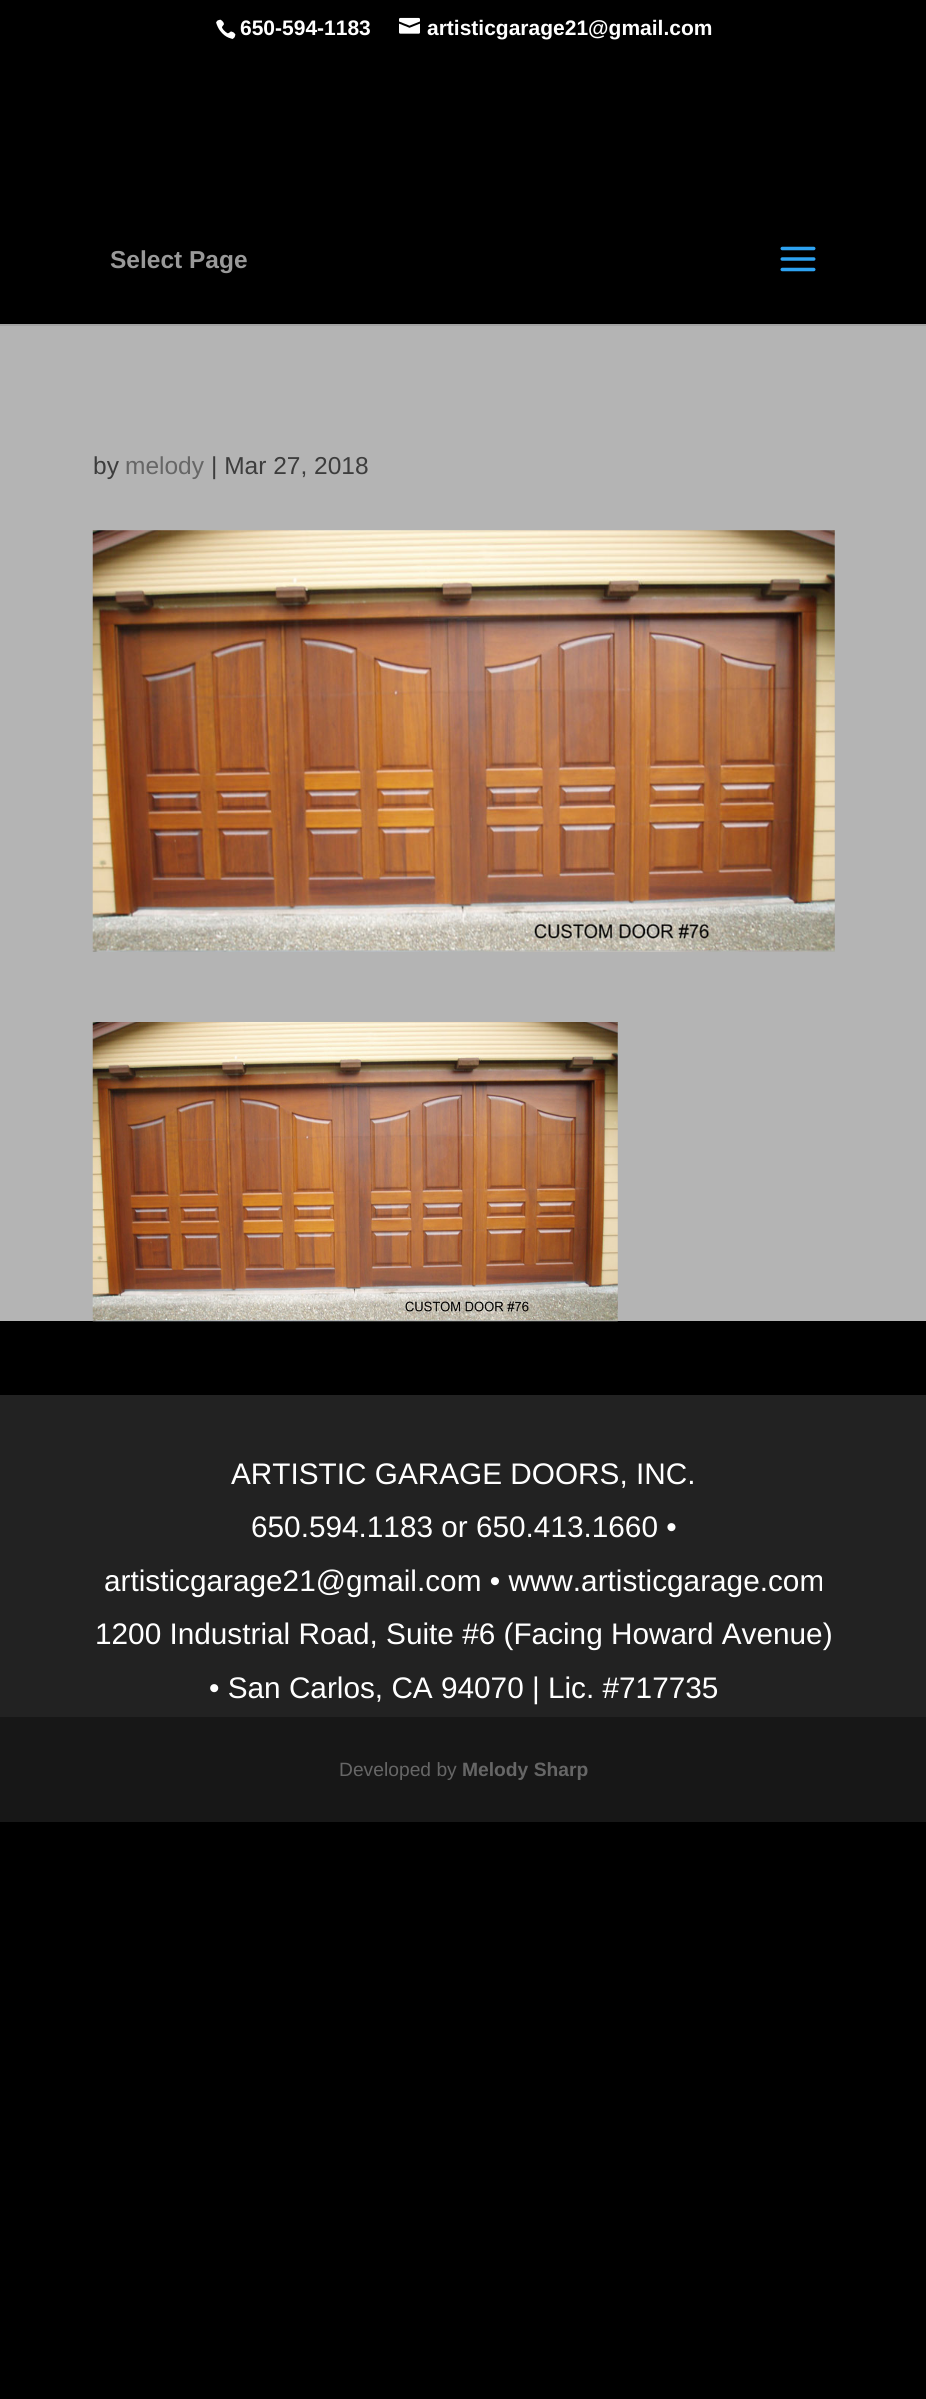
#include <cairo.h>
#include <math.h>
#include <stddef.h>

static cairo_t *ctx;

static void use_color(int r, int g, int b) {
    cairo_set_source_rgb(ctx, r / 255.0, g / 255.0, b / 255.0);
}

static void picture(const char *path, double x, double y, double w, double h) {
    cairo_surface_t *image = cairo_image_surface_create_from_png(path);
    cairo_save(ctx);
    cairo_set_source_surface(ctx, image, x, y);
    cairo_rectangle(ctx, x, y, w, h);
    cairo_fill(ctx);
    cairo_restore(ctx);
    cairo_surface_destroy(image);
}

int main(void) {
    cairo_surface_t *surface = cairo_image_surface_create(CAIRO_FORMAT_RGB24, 926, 2399);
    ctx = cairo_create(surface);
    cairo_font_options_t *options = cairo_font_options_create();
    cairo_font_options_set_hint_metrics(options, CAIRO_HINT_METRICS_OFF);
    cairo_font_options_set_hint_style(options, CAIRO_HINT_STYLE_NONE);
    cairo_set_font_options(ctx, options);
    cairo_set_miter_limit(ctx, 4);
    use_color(0, 0, 0);
    cairo_paint(ctx);
    picture("img1.png", 216, 19, 20, 20);
    cairo_select_font_face(ctx, "Liberation Sans", CAIRO_FONT_SLANT_NORMAL, CAIRO_FONT_WEIGHT_BOLD);
    cairo_set_font_size(ctx, 21);
    use_color(255, 255, 255);
    cairo_move_to(ctx, 240, 35);
    cairo_show_text(ctx, "650-594-1183");
    picture("img2.png", 399, 17, 21, 17);
    cairo_move_to(ctx, 427, 35);
    cairo_show_text(ctx, "artisticgarage21@gmail.com");
    use_color(162, 162, 162);
    cairo_new_path(ctx);
    cairo_move_to(ctx, 0, 324);
    cairo_line_to(ctx, 0, 326);
    cairo_line_to(ctx, 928, 326);
    cairo_line_to(ctx, 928, 56);
    cairo_line_to(ctx, 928, 324);
    cairo_close_path(ctx);
    cairo_fill(ctx);
    cairo_set_font_size(ctx, 24.5);
    use_color(153, 153, 153);
    cairo_move_to(ctx, 110, 268);
    cairo_show_text(ctx, "Select Page");
    picture("img3.png", 780, 246, 36, 26);
    use_color(180, 180, 180);
    cairo_rectangle(ctx, 0, 326, 926, 995);
    cairo_fill(ctx);
    cairo_select_font_face(ctx, "Liberation Sans", CAIRO_FONT_SLANT_NORMAL, CAIRO_FONT_WEIGHT_NORMAL);
    use_color(61, 61, 61);
    cairo_move_to(ctx, 93, 474);
    cairo_show_text(ctx, "by");
    use_color(102, 102, 102);
    cairo_move_to(ctx, 125, 474);
    cairo_show_text(ctx, "melody");
    use_color(61, 61, 61);
    cairo_move_to(ctx, 211, 474);
    cairo_show_text(ctx, "| Mar 27, 2018");
    picture("img4.png", 92, 530, 743, 422);
    picture("img5.png", 92, 1022, 526, 300);
    use_color(34, 34, 34);
    cairo_rectangle(ctx, 0, 1395, 926, 322);
    cairo_fill(ctx);
    cairo_set_font_size(ctx, 29.75);
    use_color(255, 255, 255);
    cairo_move_to(ctx, 231, 1484);
    cairo_show_text(ctx, "ARTISTIC GARAGE DOORS, INC.");
    cairo_move_to(ctx, 251, 1537);
    cairo_show_text(ctx, "650.594.1183 or 650.413.1660 •");
    cairo_move_to(ctx, 104, 1591);
    cairo_show_text(ctx, "artisticgarage21@gmail.com • www.artisticgarage.com");
    cairo_move_to(ctx, 95, 1644);
    cairo_show_text(ctx, "1200 Industrial Road, Suite #6 (Facing Howard Avenue)");
    cairo_move_to(ctx, 209, 1698);
    cairo_show_text(ctx, "• San Carlos, CA 94070 | Lic. #717735");
    use_color(23, 23, 23);
    cairo_rectangle(ctx, 0, 1717, 926, 105);
    cairo_fill(ctx);
    cairo_set_font_size(ctx, 19.25);
    use_color(102, 102, 102);
    cairo_move_to(ctx, 339, 1776);
    cairo_show_text(ctx, "Developed by");
    cairo_select_font_face(ctx, "Liberation Sans", CAIRO_FONT_SLANT_NORMAL, CAIRO_FONT_WEIGHT_BOLD);
    cairo_move_to(ctx, 462, 1776);
    cairo_show_text(ctx, "Melody Sharp");
    cairo_surface_write_to_png(surface, "result.png");
    cairo_font_options_destroy(options);
    cairo_destroy(ctx);
    cairo_surface_destroy(surface);
    return 0;
}
